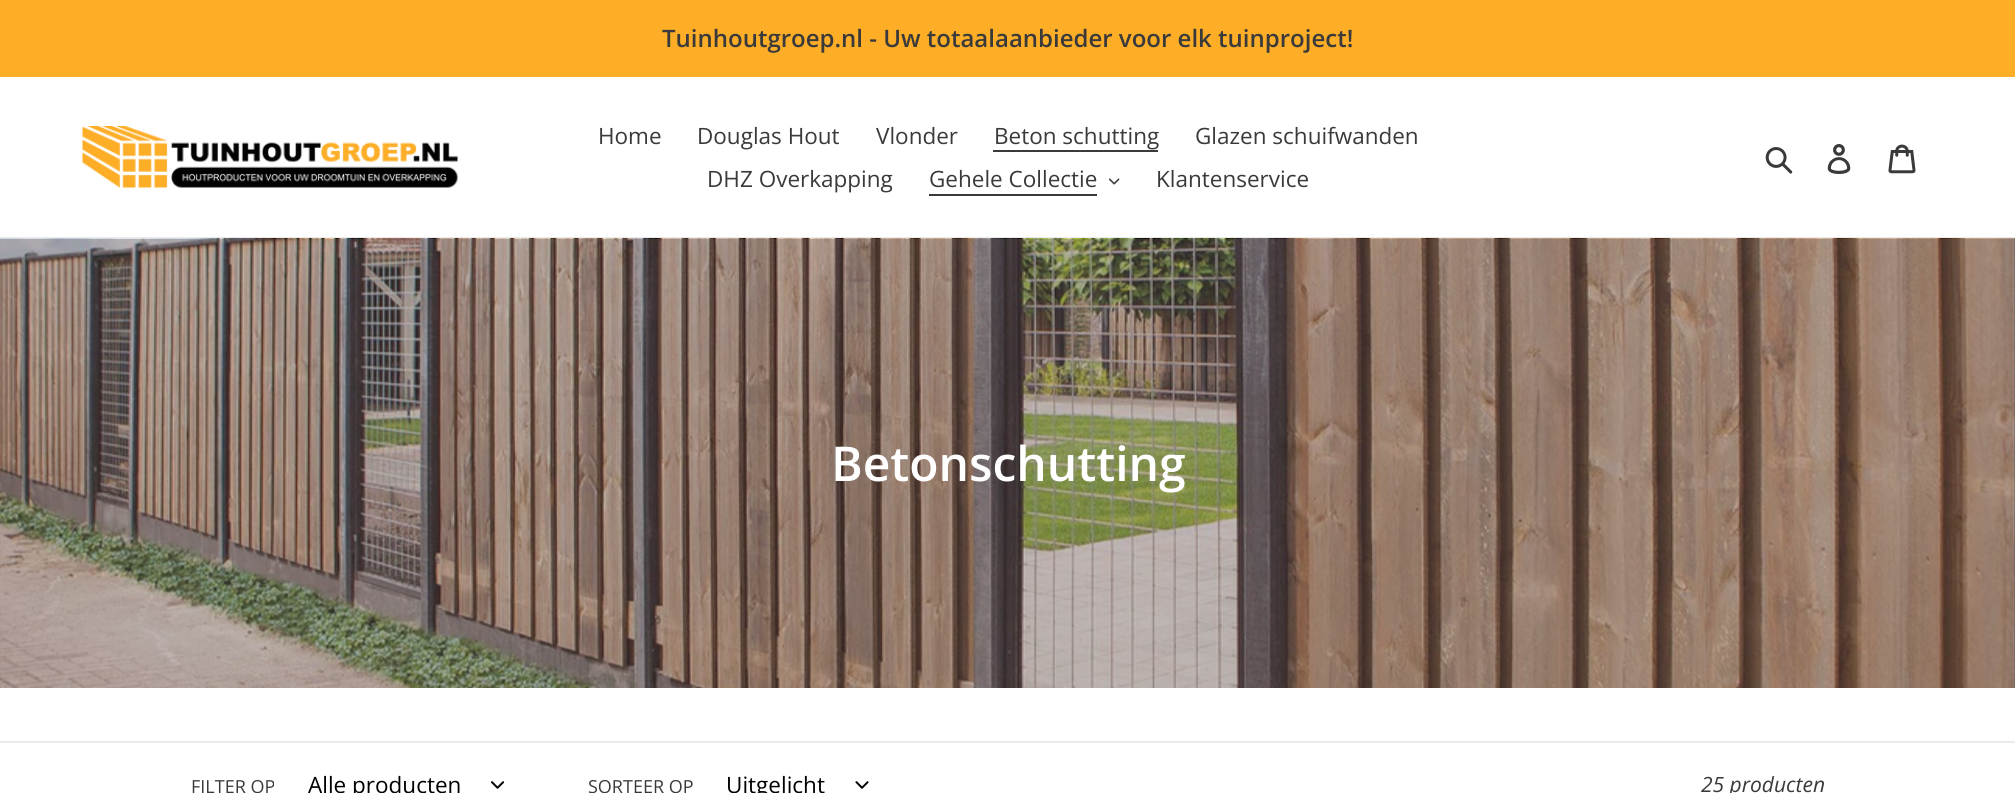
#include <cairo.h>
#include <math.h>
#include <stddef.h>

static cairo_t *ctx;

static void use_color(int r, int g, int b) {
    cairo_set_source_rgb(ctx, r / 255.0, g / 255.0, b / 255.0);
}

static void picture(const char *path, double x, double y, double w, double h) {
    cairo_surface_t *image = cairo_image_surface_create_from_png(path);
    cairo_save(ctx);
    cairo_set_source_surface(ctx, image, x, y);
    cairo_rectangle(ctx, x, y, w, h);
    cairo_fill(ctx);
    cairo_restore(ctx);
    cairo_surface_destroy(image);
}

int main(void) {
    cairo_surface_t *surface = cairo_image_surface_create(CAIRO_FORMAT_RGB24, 2015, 793);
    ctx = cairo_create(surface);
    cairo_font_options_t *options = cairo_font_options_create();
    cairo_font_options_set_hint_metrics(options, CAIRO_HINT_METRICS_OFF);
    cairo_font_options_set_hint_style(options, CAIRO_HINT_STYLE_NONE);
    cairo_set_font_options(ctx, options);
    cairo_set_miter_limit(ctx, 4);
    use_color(255, 255, 255);
    cairo_paint(ctx);
    use_color(253, 173, 38);
    cairo_rectangle(ctx, 0, 0, 2015, 77);
    cairo_fill(ctx);
    cairo_select_font_face(ctx, "Open Sans SemiBold", CAIRO_FONT_SLANT_NORMAL, CAIRO_FONT_WEIGHT_NORMAL);
    cairo_set_font_size(ctx, 24);
    use_color(58, 58, 58);
    cairo_move_to(ctx, 662, 47);
    cairo_show_text(ctx, "Tuinhoutgroep.nl - Uw totaalaanbieder voor elk tuinproject!");
    use_color(235, 235, 235);
    cairo_rectangle(ctx, 0, 237, 2015, 1);
    cairo_fill(ctx);
    picture("img1.png", 82, 126, 376, 62);
    cairo_select_font_face(ctx, "Open Sans", CAIRO_FONT_SLANT_NORMAL, CAIRO_FONT_WEIGHT_NORMAL);
    cairo_set_font_size(ctx, 22.5);
    use_color(58, 58, 58);
    cairo_move_to(ctx, 598, 144);
    cairo_show_text(ctx, "Home");
    cairo_move_to(ctx, 697, 144);
    cairo_show_text(ctx, "Douglas Hout");
    cairo_move_to(ctx, 876, 144);
    cairo_show_text(ctx, "Vlonder");
    cairo_move_to(ctx, 994, 144);
    cairo_show_text(ctx, "Beton schutting");
    cairo_rectangle(ctx, 993, 150, 165, 2);
    cairo_fill(ctx);
    cairo_move_to(ctx, 1195, 144);
    cairo_show_text(ctx, "Glazen schuifwanden");
    cairo_move_to(ctx, 707, 187);
    cairo_show_text(ctx, "DHZ Overkapping");
    cairo_move_to(ctx, 929, 187);
    cairo_show_text(ctx, "Gehele Collectie");
    cairo_rectangle(ctx, 929, 194, 168, 2);
    cairo_fill(ctx);
    picture("img2.png", 1109, 178, 11, 7);
    cairo_move_to(ctx, 1156, 187);
    cairo_show_text(ctx, "Klantenservice");
    picture("img3.png", 1765, 147, 28, 27);
    picture("img4.png", 1827, 144, 24, 30);
    picture("img5.png", 1888, 144, 28, 30);
    picture("img6.png", 0, 238, 2015, 450);
    cairo_select_font_face(ctx, "Open Sans SemiBold", CAIRO_FONT_SLANT_NORMAL, CAIRO_FONT_WEIGHT_NORMAL);
    cairo_set_font_size(ctx, 48);
    use_color(255, 255, 255);
    cairo_move_to(ctx, 831, 481);
    cairo_show_text(ctx, "Betonschutting");
    use_color(235, 235, 235);
    cairo_rectangle(ctx, 0, 741, 2015, 2);
    cairo_fill(ctx);
    cairo_select_font_face(ctx, "Open Sans", CAIRO_FONT_SLANT_NORMAL, CAIRO_FONT_WEIGHT_NORMAL);
    cairo_set_font_size(ctx, 18);
    use_color(58, 58, 58);
    cairo_move_to(ctx, 191, 793);
    cairo_show_text(ctx, "FILTER OP");
    cairo_set_font_size(ctx, 22.5);
    use_color(0, 0, 0);
    cairo_move_to(ctx, 308, 793);
    cairo_show_text(ctx, "Alle producten");
    picture("img7.png", 491, 781, 13, 8);
    cairo_set_font_size(ctx, 18);
    use_color(58, 58, 58);
    cairo_move_to(ctx, 588, 793);
    cairo_show_text(ctx, "SORTEER OP");
    cairo_set_font_size(ctx, 22.5);
    use_color(0, 0, 0);
    cairo_move_to(ctx, 726, 793);
    cairo_show_text(ctx, "Uitgelicht");
    picture("img8.png", 855, 781, 14, 8);
    cairo_select_font_face(ctx, "Open Sans", CAIRO_FONT_SLANT_ITALIC, CAIRO_FONT_WEIGHT_NORMAL);
    cairo_set_font_size(ctx, 21);
    use_color(58, 58, 58);
    cairo_move_to(ctx, 1701, 792);
    cairo_show_text(ctx, "25 producten");
    cairo_surface_write_to_png(surface, "result.png");
    cairo_font_options_destroy(options);
    cairo_destroy(ctx);
    cairo_surface_destroy(surface);
    return 0;
}
